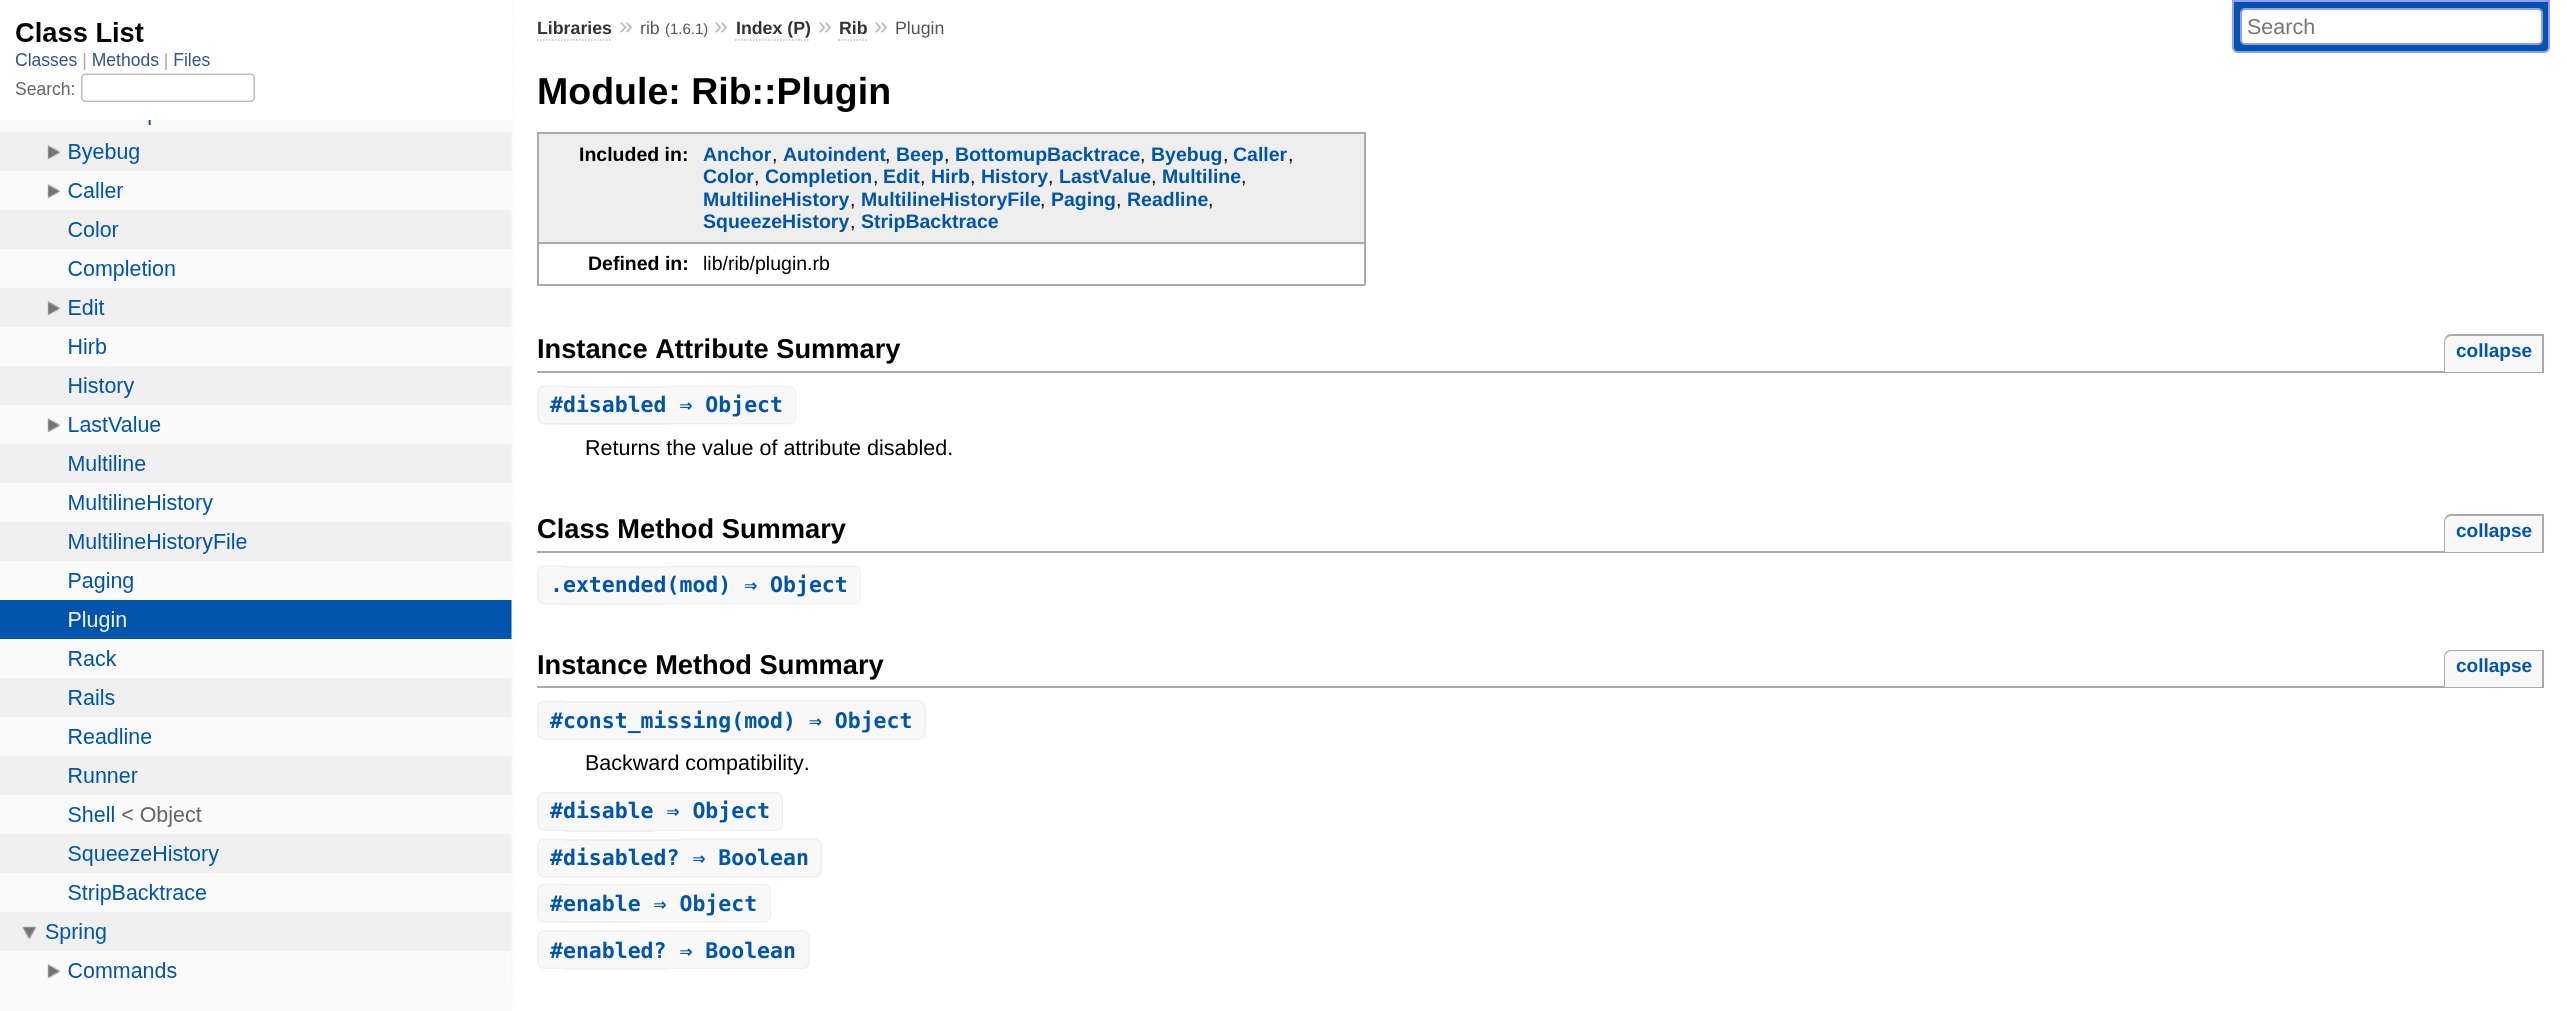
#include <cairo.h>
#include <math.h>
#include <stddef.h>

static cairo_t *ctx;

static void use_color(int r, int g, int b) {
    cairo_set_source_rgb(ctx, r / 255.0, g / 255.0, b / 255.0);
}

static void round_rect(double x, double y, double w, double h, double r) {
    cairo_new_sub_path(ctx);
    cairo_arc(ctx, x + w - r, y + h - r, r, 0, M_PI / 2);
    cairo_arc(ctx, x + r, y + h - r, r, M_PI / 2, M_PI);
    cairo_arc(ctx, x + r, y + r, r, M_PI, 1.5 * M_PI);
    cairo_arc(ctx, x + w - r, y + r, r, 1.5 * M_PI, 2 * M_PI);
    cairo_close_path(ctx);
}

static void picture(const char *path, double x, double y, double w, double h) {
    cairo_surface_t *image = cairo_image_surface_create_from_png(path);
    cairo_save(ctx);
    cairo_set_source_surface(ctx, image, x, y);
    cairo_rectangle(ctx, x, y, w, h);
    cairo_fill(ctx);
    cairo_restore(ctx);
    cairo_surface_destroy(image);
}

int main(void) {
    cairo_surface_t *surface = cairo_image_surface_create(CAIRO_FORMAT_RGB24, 2567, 1011);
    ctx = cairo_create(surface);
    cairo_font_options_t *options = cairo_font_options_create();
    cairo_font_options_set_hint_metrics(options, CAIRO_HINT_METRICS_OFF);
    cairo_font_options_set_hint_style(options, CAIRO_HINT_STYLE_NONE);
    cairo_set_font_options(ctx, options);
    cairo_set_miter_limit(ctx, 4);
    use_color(255, 255, 255);
    cairo_paint(ctx);
    cairo_new_path(ctx);
    cairo_move_to(ctx, 512, 0);
    cairo_line_to(ctx, 512, 1011);
    use_color(238, 238, 238);
    cairo_set_line_width(ctx, 1.5);
    cairo_set_dash(ctx, (double[]){1.5, 1.5}, 2, 0);
    cairo_stroke(ctx);
    picture("img1.png", 0, 0, 512, 1011);
    cairo_select_font_face(ctx, "Liberation Sans", CAIRO_FONT_SLANT_NORMAL, CAIRO_FONT_WEIGHT_BOLD);
    cairo_set_font_size(ctx, 17.75);
    use_color(51, 51, 51);
    cairo_move_to(ctx, 537, 34);
    cairo_show_text(ctx, "Libraries");
    cairo_new_path(ctx);
    cairo_move_to(ctx, 537, 40);
    cairo_line_to(ctx, 612, 40);
    use_color(187, 187, 221);
    cairo_stroke(ctx);
    cairo_select_font_face(ctx, "Liberation Sans", CAIRO_FONT_SLANT_NORMAL, CAIRO_FONT_WEIGHT_NORMAL);
    cairo_set_font_size(ctx, 25);
    use_color(187, 187, 187);
    cairo_move_to(ctx, 619, 34);
    cairo_show_text(ctx, "»");
    cairo_set_font_size(ctx, 17.75);
    use_color(85, 85, 85);
    cairo_move_to(ctx, 640, 34);
    cairo_show_text(ctx, "rib");
    cairo_set_font_size(ctx, 15);
    cairo_move_to(ctx, 665, 34);
    cairo_show_text(ctx, "(1.6.1)");
    cairo_set_font_size(ctx, 25);
    use_color(187, 187, 187);
    cairo_move_to(ctx, 714, 34);
    cairo_show_text(ctx, "»");
    cairo_select_font_face(ctx, "Liberation Sans", CAIRO_FONT_SLANT_NORMAL, CAIRO_FONT_WEIGHT_BOLD);
    cairo_set_font_size(ctx, 17.75);
    use_color(51, 51, 51);
    cairo_move_to(ctx, 736, 34);
    cairo_show_text(ctx, "Index (P)");
    cairo_new_path(ctx);
    cairo_move_to(ctx, 735, 40);
    cairo_line_to(ctx, 810, 40);
    use_color(187, 187, 221);
    cairo_stroke(ctx);
    cairo_select_font_face(ctx, "Liberation Sans", CAIRO_FONT_SLANT_NORMAL, CAIRO_FONT_WEIGHT_NORMAL);
    cairo_set_font_size(ctx, 25);
    use_color(187, 187, 187);
    cairo_move_to(ctx, 818, 34);
    cairo_show_text(ctx, "»");
    cairo_select_font_face(ctx, "Liberation Sans", CAIRO_FONT_SLANT_NORMAL, CAIRO_FONT_WEIGHT_BOLD);
    cairo_set_font_size(ctx, 17.75);
    use_color(51, 51, 51);
    cairo_move_to(ctx, 839, 34);
    cairo_show_text(ctx, "Rib");
    cairo_new_path(ctx);
    cairo_move_to(ctx, 838.5, 40);
    cairo_line_to(ctx, 867, 40);
    use_color(187, 187, 221);
    cairo_stroke(ctx);
    cairo_select_font_face(ctx, "Liberation Sans", CAIRO_FONT_SLANT_NORMAL, CAIRO_FONT_WEIGHT_NORMAL);
    cairo_set_font_size(ctx, 25);
    use_color(187, 187, 187);
    cairo_move_to(ctx, 874, 34);
    cairo_show_text(ctx, "»");
    cairo_set_font_size(ctx, 17.75);
    use_color(85, 85, 85);
    cairo_move_to(ctx, 895, 34);
    cairo_show_text(ctx, "Plugin");
    use_color(0, 85, 170);
    cairo_new_path(ctx);
    cairo_move_to(ctx, 2233, 1);
    cairo_line_to(ctx, 2549, 1);
    cairo_line_to(ctx, 2549, 47);
    cairo_curve_to(ctx, 2549, 50, 2547, 52, 2544, 52);
    cairo_line_to(ctx, 2238, 52);
    cairo_curve_to(ctx, 2235, 52, 2233, 50, 2233, 47);
    cairo_close_path(ctx);
    cairo_fill_preserve(ctx);
    use_color(153, 153, 255);
    cairo_set_line_width(ctx, 2);
    cairo_set_dash(ctx, NULL, 0, 0);
    cairo_stroke(ctx);
    use_color(255, 255, 255);
    round_rect(2241, 9, 301, 35, 4);
    cairo_fill_preserve(ctx);
    use_color(153, 153, 255);
    cairo_stroke(ctx);
    cairo_set_font_size(ctx, 21.5);
    use_color(117, 117, 117);
    cairo_move_to(ctx, 2247, 34);
    cairo_show_text(ctx, "Search");
    cairo_select_font_face(ctx, "Liberation Sans", CAIRO_FONT_SLANT_NORMAL, CAIRO_FONT_WEIGHT_BOLD);
    cairo_set_font_size(ctx, 37.5);
    use_color(0, 0, 0);
    cairo_move_to(ctx, 537, 104);
    cairo_show_text(ctx, "Module: Rib::Plugin");
    use_color(238, 238, 238);
    cairo_rectangle(ctx, 539, 134, 825, 108);
    cairo_fill(ctx);
    use_color(170, 170, 170);
    cairo_rectangle(ctx, 537, 132, 828, 2);
    cairo_fill(ctx);
    cairo_rectangle(ctx, 537, 132, 2, 110);
    cairo_fill(ctx);
    cairo_set_font_size(ctx, 19.5);
    use_color(0, 0, 0);
    cairo_move_to(ctx, 579, 161);
    cairo_show_text(ctx, "Included in:");
    use_color(170, 170, 170);
    cairo_rectangle(ctx, 537, 242, 828, 2);
    cairo_fill(ctx);
    cairo_rectangle(ctx, 1364, 132, 2, 153);
    cairo_fill(ctx);
    use_color(0, 85, 170);
    cairo_move_to(ctx, 703, 161);
    cairo_show_text(ctx, "Anchor");
    cairo_select_font_face(ctx, "Liberation Sans", CAIRO_FONT_SLANT_NORMAL, CAIRO_FONT_WEIGHT_NORMAL);
    use_color(0, 0, 0);
    cairo_move_to(ctx, 772, 161);
    cairo_show_text(ctx, ",");
    cairo_select_font_face(ctx, "Liberation Sans", CAIRO_FONT_SLANT_NORMAL, CAIRO_FONT_WEIGHT_BOLD);
    use_color(0, 85, 170);
    cairo_move_to(ctx, 783, 161);
    cairo_show_text(ctx, "Autoindent");
    cairo_select_font_face(ctx, "Liberation Sans", CAIRO_FONT_SLANT_NORMAL, CAIRO_FONT_WEIGHT_NORMAL);
    use_color(0, 0, 0);
    cairo_move_to(ctx, 885, 161);
    cairo_show_text(ctx, ",");
    cairo_select_font_face(ctx, "Liberation Sans", CAIRO_FONT_SLANT_NORMAL, CAIRO_FONT_WEIGHT_BOLD);
    use_color(0, 85, 170);
    cairo_move_to(ctx, 896, 161);
    cairo_show_text(ctx, "Beep");
    cairo_select_font_face(ctx, "Liberation Sans", CAIRO_FONT_SLANT_NORMAL, CAIRO_FONT_WEIGHT_NORMAL);
    use_color(0, 0, 0);
    cairo_move_to(ctx, 944, 161);
    cairo_show_text(ctx, ",");
    cairo_select_font_face(ctx, "Liberation Sans", CAIRO_FONT_SLANT_NORMAL, CAIRO_FONT_WEIGHT_BOLD);
    use_color(0, 85, 170);
    cairo_move_to(ctx, 955, 161);
    cairo_show_text(ctx, "BottomupBacktrace");
    cairo_select_font_face(ctx, "Liberation Sans", CAIRO_FONT_SLANT_NORMAL, CAIRO_FONT_WEIGHT_NORMAL);
    use_color(0, 0, 0);
    cairo_move_to(ctx, 1140, 161);
    cairo_show_text(ctx, ",");
    cairo_select_font_face(ctx, "Liberation Sans", CAIRO_FONT_SLANT_NORMAL, CAIRO_FONT_WEIGHT_BOLD);
    use_color(0, 85, 170);
    cairo_move_to(ctx, 1151, 161);
    cairo_show_text(ctx, "Byebug");
    cairo_select_font_face(ctx, "Liberation Sans", CAIRO_FONT_SLANT_NORMAL, CAIRO_FONT_WEIGHT_NORMAL);
    use_color(0, 0, 0);
    cairo_move_to(ctx, 1223, 161);
    cairo_show_text(ctx, ",");
    cairo_select_font_face(ctx, "Liberation Sans", CAIRO_FONT_SLANT_NORMAL, CAIRO_FONT_WEIGHT_BOLD);
    use_color(0, 85, 170);
    cairo_move_to(ctx, 1233, 161);
    cairo_show_text(ctx, "Caller");
    cairo_select_font_face(ctx, "Liberation Sans", CAIRO_FONT_SLANT_NORMAL, CAIRO_FONT_WEIGHT_NORMAL);
    use_color(0, 0, 0);
    cairo_move_to(ctx, 1288, 161);
    cairo_show_text(ctx, ",");
    cairo_select_font_face(ctx, "Liberation Sans", CAIRO_FONT_SLANT_NORMAL, CAIRO_FONT_WEIGHT_BOLD);
    use_color(0, 85, 170);
    cairo_move_to(ctx, 703, 183);
    cairo_show_text(ctx, "Color");
    cairo_select_font_face(ctx, "Liberation Sans", CAIRO_FONT_SLANT_NORMAL, CAIRO_FONT_WEIGHT_NORMAL);
    use_color(0, 0, 0);
    cairo_move_to(ctx, 754, 183);
    cairo_show_text(ctx, ",");
    cairo_select_font_face(ctx, "Liberation Sans", CAIRO_FONT_SLANT_NORMAL, CAIRO_FONT_WEIGHT_BOLD);
    use_color(0, 85, 170);
    cairo_move_to(ctx, 765, 183);
    cairo_show_text(ctx, "Completion");
    cairo_select_font_face(ctx, "Liberation Sans", CAIRO_FONT_SLANT_NORMAL, CAIRO_FONT_WEIGHT_NORMAL);
    use_color(0, 0, 0);
    cairo_move_to(ctx, 873, 183);
    cairo_show_text(ctx, ",");
    cairo_select_font_face(ctx, "Liberation Sans", CAIRO_FONT_SLANT_NORMAL, CAIRO_FONT_WEIGHT_BOLD);
    use_color(0, 85, 170);
    cairo_move_to(ctx, 883, 183);
    cairo_show_text(ctx, "Edit");
    cairo_select_font_face(ctx, "Liberation Sans", CAIRO_FONT_SLANT_NORMAL, CAIRO_FONT_WEIGHT_NORMAL);
    use_color(0, 0, 0);
    cairo_move_to(ctx, 920, 183);
    cairo_show_text(ctx, ",");
    cairo_select_font_face(ctx, "Liberation Sans", CAIRO_FONT_SLANT_NORMAL, CAIRO_FONT_WEIGHT_BOLD);
    use_color(0, 85, 170);
    cairo_move_to(ctx, 931, 183);
    cairo_show_text(ctx, "Hirb");
    cairo_select_font_face(ctx, "Liberation Sans", CAIRO_FONT_SLANT_NORMAL, CAIRO_FONT_WEIGHT_NORMAL);
    use_color(0, 0, 0);
    cairo_move_to(ctx, 970, 183);
    cairo_show_text(ctx, ",");
    cairo_select_font_face(ctx, "Liberation Sans", CAIRO_FONT_SLANT_NORMAL, CAIRO_FONT_WEIGHT_BOLD);
    use_color(0, 85, 170);
    cairo_move_to(ctx, 981, 183);
    cairo_show_text(ctx, "History");
    cairo_select_font_face(ctx, "Liberation Sans", CAIRO_FONT_SLANT_NORMAL, CAIRO_FONT_WEIGHT_NORMAL);
    use_color(0, 0, 0);
    cairo_move_to(ctx, 1048, 183);
    cairo_show_text(ctx, ",");
    cairo_select_font_face(ctx, "Liberation Sans", CAIRO_FONT_SLANT_NORMAL, CAIRO_FONT_WEIGHT_BOLD);
    use_color(0, 85, 170);
    cairo_move_to(ctx, 1059, 183);
    cairo_show_text(ctx, "LastValue");
    cairo_select_font_face(ctx, "Liberation Sans", CAIRO_FONT_SLANT_NORMAL, CAIRO_FONT_WEIGHT_NORMAL);
    use_color(0, 0, 0);
    cairo_move_to(ctx, 1151, 183);
    cairo_show_text(ctx, ",");
    cairo_select_font_face(ctx, "Liberation Sans", CAIRO_FONT_SLANT_NORMAL, CAIRO_FONT_WEIGHT_BOLD);
    use_color(0, 85, 170);
    cairo_move_to(ctx, 1162, 183);
    cairo_show_text(ctx, "Multiline");
    cairo_select_font_face(ctx, "Liberation Sans", CAIRO_FONT_SLANT_NORMAL, CAIRO_FONT_WEIGHT_NORMAL);
    use_color(0, 0, 0);
    cairo_move_to(ctx, 1241, 183);
    cairo_show_text(ctx, ",");
    cairo_select_font_face(ctx, "Liberation Sans", CAIRO_FONT_SLANT_NORMAL, CAIRO_FONT_WEIGHT_BOLD);
    use_color(0, 85, 170);
    cairo_move_to(ctx, 703, 206);
    cairo_show_text(ctx, "MultilineHistory");
    cairo_select_font_face(ctx, "Liberation Sans", CAIRO_FONT_SLANT_NORMAL, CAIRO_FONT_WEIGHT_NORMAL);
    use_color(0, 0, 0);
    cairo_move_to(ctx, 850, 206);
    cairo_show_text(ctx, ",");
    cairo_select_font_face(ctx, "Liberation Sans", CAIRO_FONT_SLANT_NORMAL, CAIRO_FONT_WEIGHT_BOLD);
    use_color(0, 85, 170);
    cairo_move_to(ctx, 861, 206);
    cairo_show_text(ctx, "MultilineHistoryFile");
    cairo_select_font_face(ctx, "Liberation Sans", CAIRO_FONT_SLANT_NORMAL, CAIRO_FONT_WEIGHT_NORMAL);
    use_color(0, 0, 0);
    cairo_move_to(ctx, 1040, 206);
    cairo_show_text(ctx, ",");
    cairo_select_font_face(ctx, "Liberation Sans", CAIRO_FONT_SLANT_NORMAL, CAIRO_FONT_WEIGHT_BOLD);
    use_color(0, 85, 170);
    cairo_move_to(ctx, 1051, 206);
    cairo_show_text(ctx, "Paging");
    cairo_select_font_face(ctx, "Liberation Sans", CAIRO_FONT_SLANT_NORMAL, CAIRO_FONT_WEIGHT_NORMAL);
    use_color(0, 0, 0);
    cairo_move_to(ctx, 1116, 206);
    cairo_show_text(ctx, ",");
    cairo_select_font_face(ctx, "Liberation Sans", CAIRO_FONT_SLANT_NORMAL, CAIRO_FONT_WEIGHT_BOLD);
    use_color(0, 85, 170);
    cairo_move_to(ctx, 1127, 206);
    cairo_show_text(ctx, "Readline");
    cairo_select_font_face(ctx, "Liberation Sans", CAIRO_FONT_SLANT_NORMAL, CAIRO_FONT_WEIGHT_NORMAL);
    use_color(0, 0, 0);
    cairo_move_to(ctx, 1208, 206);
    cairo_show_text(ctx, ",");
    cairo_select_font_face(ctx, "Liberation Sans", CAIRO_FONT_SLANT_NORMAL, CAIRO_FONT_WEIGHT_BOLD);
    use_color(0, 85, 170);
    cairo_move_to(ctx, 703, 228);
    cairo_show_text(ctx, "SqueezeHistory");
    cairo_select_font_face(ctx, "Liberation Sans", CAIRO_FONT_SLANT_NORMAL, CAIRO_FONT_WEIGHT_NORMAL);
    use_color(0, 0, 0);
    cairo_move_to(ctx, 850, 228);
    cairo_show_text(ctx, ",");
    cairo_select_font_face(ctx, "Liberation Sans", CAIRO_FONT_SLANT_NORMAL, CAIRO_FONT_WEIGHT_BOLD);
    use_color(0, 85, 170);
    cairo_move_to(ctx, 861, 228);
    cairo_show_text(ctx, "StripBacktrace");
    use_color(170, 170, 170);
    cairo_rectangle(ctx, 537, 284, 167, 2);
    cairo_fill(ctx);
    cairo_rectangle(ctx, 537, 242, 2, 43);
    cairo_fill(ctx);
    use_color(0, 0, 0);
    cairo_move_to(ctx, 588, 270);
    cairo_show_text(ctx, "Defined in:");
    use_color(170, 170, 170);
    cairo_rectangle(ctx, 704, 284, 661, 2);
    cairo_fill(ctx);
    cairo_select_font_face(ctx, "Liberation Sans", CAIRO_FONT_SLANT_NORMAL, CAIRO_FONT_WEIGHT_NORMAL);
    use_color(0, 0, 0);
    cairo_move_to(ctx, 703, 270);
    cairo_show_text(ctx, "lib/rib/plugin.rb");
    use_color(170, 170, 170);
    cairo_rectangle(ctx, 537, 371, 2007, 2);
    cairo_fill(ctx);
    cairo_select_font_face(ctx, "Liberation Sans", CAIRO_FONT_SLANT_NORMAL, CAIRO_FONT_WEIGHT_BOLD);
    cairo_set_font_size(ctx, 27.25);
    use_color(0, 0, 0);
    cairo_move_to(ctx, 537, 358);
    cairo_show_text(ctx, "Instance Attribute Summary");
    use_color(248, 248, 248);
    cairo_new_path(ctx);
    cairo_move_to(ctx, 2452, 335);
    cairo_line_to(ctx, 2544, 335);
    cairo_line_to(ctx, 2544, 372);
    cairo_line_to(ctx, 2444, 372);
    cairo_line_to(ctx, 2444, 343);
    cairo_curve_to(ctx, 2444, 338.5, 2447.5, 335, 2452, 335);
    cairo_close_path(ctx);
    cairo_fill(ctx);
    use_color(170, 170, 170);
    cairo_set_fill_rule(ctx, CAIRO_FILL_RULE_EVEN_ODD);
    cairo_new_path(ctx);
    cairo_move_to(ctx, 2451, 334);
    cairo_line_to(ctx, 2544, 334);
    cairo_line_to(ctx, 2544, 372);
    cairo_line_to(ctx, 2444, 372);
    cairo_line_to(ctx, 2444, 342);
    cairo_curve_to(ctx, 2444, 338, 2447, 334, 2451, 334);
    cairo_close_path(ctx);
    cairo_move_to(ctx, 2451, 336);
    cairo_line_to(ctx, 2542, 336);
    cairo_line_to(ctx, 2542, 372);
    cairo_line_to(ctx, 2445, 372);
    cairo_line_to(ctx, 2445, 342);
    cairo_curve_to(ctx, 2445, 339, 2448, 336, 2451, 336);
    cairo_close_path(ctx);
    cairo_fill(ctx);
    cairo_set_font_size(ctx, 19);
    use_color(0, 85, 170);
    cairo_move_to(ctx, 2456, 357);
    cairo_show_text(ctx, "collapse");
    use_color(248, 248, 248);
    cairo_new_path(ctx);
    cairo_move_to(ctx, 545, 386);
    cairo_line_to(ctx, 564, 386);
    cairo_line_to(ctx, 564, 425);
    cairo_line_to(ctx, 545, 425);
    cairo_curve_to(ctx, 540.5, 425, 537, 421.5, 537, 417);
    cairo_line_to(ctx, 537, 394);
    cairo_curve_to(ctx, 537, 389.5, 540.5, 386, 545, 386);
    cairo_close_path(ctx);
    cairo_fill(ctx);
    use_color(240, 240, 240);
    cairo_new_path(ctx);
    cairo_move_to(ctx, 544.5, 385.5);
    cairo_line_to(ctx, 564, 385.5);
    cairo_line_to(ctx, 564, 424.5);
    cairo_line_to(ctx, 544.5, 424.5);
    cairo_curve_to(ctx, 540.5, 424.5, 537, 421, 537, 417);
    cairo_line_to(ctx, 537, 393);
    cairo_curve_to(ctx, 537, 389, 540.5, 385.5, 544.5, 385.5);
    cairo_close_path(ctx);
    cairo_move_to(ctx, 544.5, 387);
    cairo_line_to(ctx, 564, 387);
    cairo_line_to(ctx, 564, 423);
    cairo_line_to(ctx, 544.5, 423);
    cairo_curve_to(ctx, 541, 423, 538.5, 420.5, 538.5, 417);
    cairo_line_to(ctx, 538.5, 393);
    cairo_curve_to(ctx, 538.5, 389.5, 541, 387, 544.5, 387);
    cairo_close_path(ctx);
    cairo_fill(ctx);
    use_color(248, 248, 248);
    cairo_rectangle(ctx, 564, 388, 102, 35);
    cairo_fill(ctx);
    cairo_new_path(ctx);
    cairo_move_to(ctx, 666, 386);
    cairo_line_to(ctx, 789, 386);
    cairo_curve_to(ctx, 793.5, 386, 797, 389.5, 797, 394);
    cairo_line_to(ctx, 797, 417);
    cairo_curve_to(ctx, 797, 421.5, 793.5, 425, 789, 425);
    cairo_line_to(ctx, 666, 425);
    cairo_close_path(ctx);
    cairo_fill(ctx);
    use_color(240, 240, 240);
    cairo_new_path(ctx);
    cairo_move_to(ctx, 666, 386);
    cairo_line_to(ctx, 789, 386);
    cairo_curve_to(ctx, 793, 386, 796, 389, 796, 393);
    cairo_line_to(ctx, 796, 417);
    cairo_curve_to(ctx, 796, 421, 793, 424, 789, 424);
    cairo_line_to(ctx, 666, 424);
    cairo_close_path(ctx);
    cairo_move_to(ctx, 666, 387);
    cairo_line_to(ctx, 789, 387);
    cairo_curve_to(ctx, 792, 387, 795, 390, 795, 393);
    cairo_line_to(ctx, 795, 417);
    cairo_curve_to(ctx, 795, 420, 792, 423, 789, 423);
    cairo_line_to(ctx, 666, 423);
    cairo_close_path(ctx);
    cairo_fill(ctx);
    cairo_select_font_face(ctx, "DejaVu Sans Mono", CAIRO_FONT_SLANT_NORMAL, CAIRO_FONT_WEIGHT_BOLD);
    cairo_set_font_size(ctx, 21.5);
    use_color(0, 85, 170);
    cairo_move_to(ctx, 550, 412);
    cairo_show_text(ctx, "#disabled ⇒ Object");
    use_color(240, 240, 240);
    cairo_rectangle(ctx, 564, 386, 102, 2);
    cairo_fill(ctx);
    cairo_rectangle(ctx, 564, 423, 102, 2);
    cairo_fill(ctx);
    cairo_select_font_face(ctx, "Liberation Sans", CAIRO_FONT_SLANT_NORMAL, CAIRO_FONT_WEIGHT_NORMAL);
    use_color(0, 0, 0);
    cairo_move_to(ctx, 585, 455);
    cairo_show_text(ctx, "Returns the value of attribute disabled.");
    use_color(170, 170, 170);
    cairo_rectangle(ctx, 537, 551, 2007, 2);
    cairo_fill(ctx);
    cairo_select_font_face(ctx, "Liberation Sans", CAIRO_FONT_SLANT_NORMAL, CAIRO_FONT_WEIGHT_BOLD);
    cairo_set_font_size(ctx, 27.25);
    use_color(0, 0, 0);
    cairo_move_to(ctx, 537, 538);
    cairo_show_text(ctx, "Class Method Summary");
    use_color(248, 248, 248);
    cairo_new_path(ctx);
    cairo_move_to(ctx, 2452, 515);
    cairo_line_to(ctx, 2544, 515);
    cairo_line_to(ctx, 2544, 552);
    cairo_line_to(ctx, 2444, 552);
    cairo_line_to(ctx, 2444, 523);
    cairo_curve_to(ctx, 2444, 518.5, 2447.5, 515, 2452, 515);
    cairo_close_path(ctx);
    cairo_fill(ctx);
    use_color(170, 170, 170);
    cairo_new_path(ctx);
    cairo_move_to(ctx, 2451, 514);
    cairo_line_to(ctx, 2544, 514);
    cairo_line_to(ctx, 2544, 552);
    cairo_line_to(ctx, 2444, 552);
    cairo_line_to(ctx, 2444, 522);
    cairo_curve_to(ctx, 2444, 518, 2447, 514, 2451, 514);
    cairo_close_path(ctx);
    cairo_move_to(ctx, 2451, 516);
    cairo_line_to(ctx, 2542, 516);
    cairo_line_to(ctx, 2542, 552);
    cairo_line_to(ctx, 2445, 552);
    cairo_line_to(ctx, 2445, 522);
    cairo_curve_to(ctx, 2445, 519, 2448, 516, 2451, 516);
    cairo_close_path(ctx);
    cairo_fill(ctx);
    cairo_set_font_size(ctx, 19);
    use_color(0, 85, 170);
    cairo_move_to(ctx, 2456, 537);
    cairo_show_text(ctx, "collapse");
    use_color(248, 248, 248);
    cairo_new_path(ctx);
    cairo_move_to(ctx, 545, 566);
    cairo_line_to(ctx, 564, 566);
    cairo_line_to(ctx, 564, 605);
    cairo_line_to(ctx, 545, 605);
    cairo_curve_to(ctx, 540.5, 605, 537, 601.5, 537, 597);
    cairo_line_to(ctx, 537, 574);
    cairo_curve_to(ctx, 537, 569.5, 540.5, 566, 545, 566);
    cairo_close_path(ctx);
    cairo_fill(ctx);
    use_color(240, 240, 240);
    cairo_new_path(ctx);
    cairo_move_to(ctx, 544.5, 565.5);
    cairo_line_to(ctx, 564, 565.5);
    cairo_line_to(ctx, 564, 604.5);
    cairo_line_to(ctx, 544.5, 604.5);
    cairo_curve_to(ctx, 540.5, 604.5, 537, 601, 537, 597);
    cairo_line_to(ctx, 537, 573);
    cairo_curve_to(ctx, 537, 569, 540.5, 565.5, 544.5, 565.5);
    cairo_close_path(ctx);
    cairo_move_to(ctx, 544.5, 567);
    cairo_line_to(ctx, 564, 567);
    cairo_line_to(ctx, 564, 603);
    cairo_line_to(ctx, 544.5, 603);
    cairo_curve_to(ctx, 541, 603, 538.5, 600.5, 538.5, 597);
    cairo_line_to(ctx, 538.5, 573);
    cairo_curve_to(ctx, 538.5, 569.5, 541, 567, 544.5, 567);
    cairo_close_path(ctx);
    cairo_fill(ctx);
    use_color(248, 248, 248);
    cairo_rectangle(ctx, 564, 568, 102, 35);
    cairo_fill(ctx);
    cairo_new_path(ctx);
    cairo_move_to(ctx, 666, 566);
    cairo_line_to(ctx, 853, 566);
    cairo_curve_to(ctx, 857.5, 566, 861, 569.5, 861, 574);
    cairo_line_to(ctx, 861, 597);
    cairo_curve_to(ctx, 861, 601.5, 857.5, 605, 853, 605);
    cairo_line_to(ctx, 666, 605);
    cairo_close_path(ctx);
    cairo_fill(ctx);
    use_color(240, 240, 240);
    cairo_new_path(ctx);
    cairo_move_to(ctx, 666, 566);
    cairo_line_to(ctx, 854, 566);
    cairo_curve_to(ctx, 858, 566, 861, 569, 861, 573);
    cairo_line_to(ctx, 861, 597);
    cairo_curve_to(ctx, 861, 601, 858, 604, 854, 604);
    cairo_line_to(ctx, 666, 604);
    cairo_close_path(ctx);
    cairo_move_to(ctx, 666, 567);
    cairo_line_to(ctx, 854, 567);
    cairo_curve_to(ctx, 857, 567, 860, 570, 860, 573);
    cairo_line_to(ctx, 860, 597);
    cairo_curve_to(ctx, 860, 600, 857, 603, 854, 603);
    cairo_line_to(ctx, 666, 603);
    cairo_close_path(ctx);
    cairo_fill(ctx);
    cairo_select_font_face(ctx, "DejaVu Sans Mono", CAIRO_FONT_SLANT_NORMAL, CAIRO_FONT_WEIGHT_BOLD);
    cairo_set_font_size(ctx, 21.5);
    use_color(0, 85, 170);
    cairo_move_to(ctx, 550, 592);
    cairo_show_text(ctx, ".extended(mod) ⇒ Object");
    use_color(240, 240, 240);
    cairo_rectangle(ctx, 564, 566, 102, 2);
    cairo_fill(ctx);
    cairo_rectangle(ctx, 564, 603, 102, 2);
    cairo_fill(ctx);
    use_color(170, 170, 170);
    cairo_rectangle(ctx, 537, 686, 2007, 2);
    cairo_fill(ctx);
    cairo_select_font_face(ctx, "Liberation Sans", CAIRO_FONT_SLANT_NORMAL, CAIRO_FONT_WEIGHT_BOLD);
    cairo_set_font_size(ctx, 27.25);
    use_color(0, 0, 0);
    cairo_move_to(ctx, 537, 674);
    cairo_show_text(ctx, "Instance Method Summary");
    use_color(248, 248, 248);
    cairo_new_path(ctx);
    cairo_move_to(ctx, 2452, 650);
    cairo_line_to(ctx, 2544, 650);
    cairo_line_to(ctx, 2544, 687);
    cairo_line_to(ctx, 2444, 687);
    cairo_line_to(ctx, 2444, 658);
    cairo_curve_to(ctx, 2444, 653.5, 2447.5, 650, 2452, 650);
    cairo_close_path(ctx);
    cairo_fill(ctx);
    use_color(170, 170, 170);
    cairo_new_path(ctx);
    cairo_move_to(ctx, 2451, 650);
    cairo_line_to(ctx, 2544, 650);
    cairo_line_to(ctx, 2544, 687);
    cairo_line_to(ctx, 2444, 687);
    cairo_line_to(ctx, 2444, 657);
    cairo_curve_to(ctx, 2444, 653, 2447, 650, 2451, 650);
    cairo_close_path(ctx);
    cairo_move_to(ctx, 2451, 651);
    cairo_line_to(ctx, 2542, 651);
    cairo_line_to(ctx, 2542, 687);
    cairo_line_to(ctx, 2445, 687);
    cairo_line_to(ctx, 2445, 657);
    cairo_curve_to(ctx, 2445, 654, 2448, 651, 2451, 651);
    cairo_close_path(ctx);
    cairo_fill(ctx);
    cairo_set_font_size(ctx, 19);
    use_color(0, 85, 170);
    cairo_move_to(ctx, 2456, 672);
    cairo_show_text(ctx, "collapse");
    use_color(248, 248, 248);
    cairo_new_path(ctx);
    cairo_move_to(ctx, 545, 701);
    cairo_line_to(ctx, 564, 701);
    cairo_line_to(ctx, 564, 740);
    cairo_line_to(ctx, 545, 740);
    cairo_curve_to(ctx, 540.5, 740, 537, 736.5, 537, 732);
    cairo_line_to(ctx, 537, 709);
    cairo_curve_to(ctx, 537, 704.5, 540.5, 701, 545, 701);
    cairo_close_path(ctx);
    cairo_fill(ctx);
    use_color(240, 240, 240);
    cairo_new_path(ctx);
    cairo_move_to(ctx, 544.5, 700.5);
    cairo_line_to(ctx, 564, 700.5);
    cairo_line_to(ctx, 564, 739.5);
    cairo_line_to(ctx, 544.5, 739.5);
    cairo_curve_to(ctx, 540.5, 739.5, 537, 736, 537, 732);
    cairo_line_to(ctx, 537, 708);
    cairo_curve_to(ctx, 537, 704, 540.5, 700.5, 544.5, 700.5);
    cairo_close_path(ctx);
    cairo_move_to(ctx, 544.5, 702);
    cairo_line_to(ctx, 564, 702);
    cairo_line_to(ctx, 564, 738);
    cairo_line_to(ctx, 544.5, 738);
    cairo_curve_to(ctx, 541, 738, 538.5, 735.5, 538.5, 732);
    cairo_line_to(ctx, 538.5, 708);
    cairo_curve_to(ctx, 538.5, 704.5, 541, 702, 544.5, 702);
    cairo_close_path(ctx);
    cairo_fill(ctx);
    use_color(248, 248, 248);
    cairo_rectangle(ctx, 564, 703, 168, 35);
    cairo_fill(ctx);
    cairo_new_path(ctx);
    cairo_move_to(ctx, 732, 701);
    cairo_line_to(ctx, 918, 701);
    cairo_curve_to(ctx, 922.5, 701, 926, 704.5, 926, 709);
    cairo_line_to(ctx, 926, 732);
    cairo_curve_to(ctx, 926, 736.5, 922.5, 740, 918, 740);
    cairo_line_to(ctx, 732, 740);
    cairo_close_path(ctx);
    cairo_fill(ctx);
    use_color(240, 240, 240);
    cairo_new_path(ctx);
    cairo_move_to(ctx, 732, 700);
    cairo_line_to(ctx, 918, 700);
    cairo_curve_to(ctx, 922, 700, 926, 704, 926, 708);
    cairo_line_to(ctx, 926, 732);
    cairo_curve_to(ctx, 926, 736, 922, 740, 918, 740);
    cairo_line_to(ctx, 732, 740);
    cairo_close_path(ctx);
    cairo_move_to(ctx, 732, 702);
    cairo_line_to(ctx, 918, 702);
    cairo_curve_to(ctx, 921, 702, 924, 705, 924, 708);
    cairo_line_to(ctx, 924, 732);
    cairo_curve_to(ctx, 924, 735, 921, 738, 918, 738);
    cairo_line_to(ctx, 732, 738);
    cairo_close_path(ctx);
    cairo_fill(ctx);
    cairo_select_font_face(ctx, "DejaVu Sans Mono", CAIRO_FONT_SLANT_NORMAL, CAIRO_FONT_WEIGHT_BOLD);
    cairo_set_font_size(ctx, 21.5);
    use_color(0, 85, 170);
    cairo_move_to(ctx, 550, 728);
    cairo_show_text(ctx, "#const_missing(mod) ⇒ Object");
    use_color(240, 240, 240);
    cairo_rectangle(ctx, 564, 701, 168, 2);
    cairo_fill(ctx);
    cairo_rectangle(ctx, 564, 738, 168, 2);
    cairo_fill(ctx);
    cairo_select_font_face(ctx, "Liberation Sans", CAIRO_FONT_SLANT_NORMAL, CAIRO_FONT_WEIGHT_NORMAL);
    use_color(0, 0, 0);
    cairo_move_to(ctx, 585, 770);
    cairo_show_text(ctx, "Backward compatibility.");
    use_color(248, 248, 248);
    cairo_new_path(ctx);
    cairo_move_to(ctx, 545, 792);
    cairo_line_to(ctx, 564, 792);
    cairo_line_to(ctx, 564, 831);
    cairo_line_to(ctx, 545, 831);
    cairo_curve_to(ctx, 540.5, 831, 537, 827.5, 537, 823);
    cairo_line_to(ctx, 537, 800);
    cairo_curve_to(ctx, 537, 795.5, 540.5, 792, 545, 792);
    cairo_close_path(ctx);
    cairo_fill(ctx);
    use_color(240, 240, 240);
    cairo_new_path(ctx);
    cairo_move_to(ctx, 544.5, 792);
    cairo_line_to(ctx, 564, 792);
    cairo_line_to(ctx, 564, 831);
    cairo_line_to(ctx, 544.5, 831);
    cairo_curve_to(ctx, 540.5, 831, 537, 827.5, 537, 823.5);
    cairo_line_to(ctx, 537, 799.5);
    cairo_curve_to(ctx, 537, 795.5, 540.5, 792, 544.5, 792);
    cairo_close_path(ctx);
    cairo_move_to(ctx, 544.5, 793.5);
    cairo_line_to(ctx, 564, 793.5);
    cairo_line_to(ctx, 564, 829.5);
    cairo_line_to(ctx, 544.5, 829.5);
    cairo_curve_to(ctx, 541, 829.5, 538.5, 827, 538.5, 823.5);
    cairo_line_to(ctx, 538.5, 799.5);
    cairo_curve_to(ctx, 538.5, 796, 541, 793.5, 544.5, 793.5);
    cairo_close_path(ctx);
    cairo_fill(ctx);
    use_color(248, 248, 248);
    cairo_rectangle(ctx, 564, 794, 90, 36);
    cairo_fill(ctx);
    cairo_new_path(ctx);
    cairo_move_to(ctx, 654, 792);
    cairo_line_to(ctx, 775, 792);
    cairo_curve_to(ctx, 779.5, 792, 783, 795.5, 783, 800);
    cairo_line_to(ctx, 783, 823);
    cairo_curve_to(ctx, 783, 827.5, 779.5, 831, 775, 831);
    cairo_line_to(ctx, 654, 831);
    cairo_close_path(ctx);
    cairo_fill(ctx);
    use_color(240, 240, 240);
    cairo_new_path(ctx);
    cairo_move_to(ctx, 654, 792);
    cairo_line_to(ctx, 776, 792);
    cairo_curve_to(ctx, 780, 792, 783, 795, 783, 800);
    cairo_line_to(ctx, 783, 824);
    cairo_curve_to(ctx, 783, 828, 780, 831, 776, 831);
    cairo_line_to(ctx, 654, 831);
    cairo_close_path(ctx);
    cairo_move_to(ctx, 654, 794);
    cairo_line_to(ctx, 776, 794);
    cairo_curve_to(ctx, 779, 794, 782, 796, 782, 800);
    cairo_line_to(ctx, 782, 824);
    cairo_curve_to(ctx, 782, 827, 779, 830, 776, 830);
    cairo_line_to(ctx, 654, 830);
    cairo_close_path(ctx);
    cairo_fill(ctx);
    cairo_select_font_face(ctx, "DejaVu Sans Mono", CAIRO_FONT_SLANT_NORMAL, CAIRO_FONT_WEIGHT_BOLD);
    use_color(0, 85, 170);
    cairo_move_to(ctx, 550, 818);
    cairo_show_text(ctx, "#disable ⇒ Object");
    use_color(240, 240, 240);
    cairo_rectangle(ctx, 564, 792, 90, 2);
    cairo_fill(ctx);
    cairo_rectangle(ctx, 564, 830, 90, 2);
    cairo_fill(ctx);
    use_color(248, 248, 248);
    cairo_new_path(ctx);
    cairo_move_to(ctx, 545, 839);
    cairo_line_to(ctx, 564, 839);
    cairo_line_to(ctx, 564, 878);
    cairo_line_to(ctx, 545, 878);
    cairo_curve_to(ctx, 540.5, 878, 537, 874.5, 537, 870);
    cairo_line_to(ctx, 537, 847);
    cairo_curve_to(ctx, 537, 842.5, 540.5, 839, 545, 839);
    cairo_close_path(ctx);
    cairo_fill(ctx);
    use_color(240, 240, 240);
    cairo_new_path(ctx);
    cairo_move_to(ctx, 544.5, 838.5);
    cairo_line_to(ctx, 564, 838.5);
    cairo_line_to(ctx, 564, 877.5);
    cairo_line_to(ctx, 544.5, 877.5);
    cairo_curve_to(ctx, 540.5, 877.5, 537, 874, 537, 870);
    cairo_line_to(ctx, 537, 846);
    cairo_curve_to(ctx, 537, 842, 540.5, 838.5, 544.5, 838.5);
    cairo_close_path(ctx);
    cairo_move_to(ctx, 544.5, 840);
    cairo_line_to(ctx, 564, 840);
    cairo_line_to(ctx, 564, 876);
    cairo_line_to(ctx, 544.5, 876);
    cairo_curve_to(ctx, 541, 876, 538.5, 873.5, 538.5, 870);
    cairo_line_to(ctx, 538.5, 846);
    cairo_curve_to(ctx, 538.5, 842.5, 541, 840, 544.5, 840);
    cairo_close_path(ctx);
    cairo_fill(ctx);
    use_color(248, 248, 248);
    cairo_rectangle(ctx, 564, 841, 116, 35);
    cairo_fill(ctx);
    cairo_new_path(ctx);
    cairo_move_to(ctx, 680, 839);
    cairo_line_to(ctx, 814, 839);
    cairo_curve_to(ctx, 818.5, 839, 822, 842.5, 822, 847);
    cairo_line_to(ctx, 822, 870);
    cairo_curve_to(ctx, 822, 874.5, 818.5, 878, 814, 878);
    cairo_line_to(ctx, 680, 878);
    cairo_close_path(ctx);
    cairo_fill(ctx);
    use_color(240, 240, 240);
    cairo_new_path(ctx);
    cairo_move_to(ctx, 680, 838);
    cairo_line_to(ctx, 814, 838);
    cairo_curve_to(ctx, 819, 838, 822, 842, 822, 846);
    cairo_line_to(ctx, 822, 870);
    cairo_curve_to(ctx, 822, 874, 819, 878, 814, 878);
    cairo_line_to(ctx, 680, 878);
    cairo_close_path(ctx);
    cairo_move_to(ctx, 680, 840);
    cairo_line_to(ctx, 814, 840);
    cairo_curve_to(ctx, 818, 840, 820, 843, 820, 846);
    cairo_line_to(ctx, 820, 870);
    cairo_curve_to(ctx, 820, 873, 818, 876, 814, 876);
    cairo_line_to(ctx, 680, 876);
    cairo_close_path(ctx);
    cairo_fill(ctx);
    use_color(0, 85, 170);
    cairo_move_to(ctx, 550, 865);
    cairo_show_text(ctx, "#disabled? ⇒ Boolean");
    use_color(240, 240, 240);
    cairo_rectangle(ctx, 564, 839, 116, 2);
    cairo_fill(ctx);
    cairo_rectangle(ctx, 564, 876, 116, 2);
    cairo_fill(ctx);
    use_color(248, 248, 248);
    cairo_new_path(ctx);
    cairo_move_to(ctx, 545, 884);
    cairo_line_to(ctx, 564, 884);
    cairo_line_to(ctx, 564, 923);
    cairo_line_to(ctx, 545, 923);
    cairo_curve_to(ctx, 540.5, 923, 537, 919.5, 537, 915);
    cairo_line_to(ctx, 537, 892);
    cairo_curve_to(ctx, 537, 887.5, 540.5, 884, 545, 884);
    cairo_close_path(ctx);
    cairo_fill(ctx);
    use_color(240, 240, 240);
    cairo_new_path(ctx);
    cairo_move_to(ctx, 544.5, 883.5);
    cairo_line_to(ctx, 564, 883.5);
    cairo_line_to(ctx, 564, 922.5);
    cairo_line_to(ctx, 544.5, 922.5);
    cairo_curve_to(ctx, 540.5, 922.5, 537, 919, 537, 915);
    cairo_line_to(ctx, 537, 891);
    cairo_curve_to(ctx, 537, 887, 540.5, 883.5, 544.5, 883.5);
    cairo_close_path(ctx);
    cairo_move_to(ctx, 544.5, 885);
    cairo_line_to(ctx, 564, 885);
    cairo_line_to(ctx, 564, 921);
    cairo_line_to(ctx, 544.5, 921);
    cairo_curve_to(ctx, 541, 921, 538.5, 918.5, 538.5, 915);
    cairo_line_to(ctx, 538.5, 891);
    cairo_curve_to(ctx, 538.5, 887.5, 541, 885, 544.5, 885);
    cairo_close_path(ctx);
    cairo_fill(ctx);
    use_color(248, 248, 248);
    cairo_rectangle(ctx, 564, 886, 77, 35);
    cairo_fill(ctx);
    cairo_new_path(ctx);
    cairo_move_to(ctx, 641, 884);
    cairo_line_to(ctx, 763, 884);
    cairo_curve_to(ctx, 767.5, 884, 771, 887.5, 771, 892);
    cairo_line_to(ctx, 771, 915);
    cairo_curve_to(ctx, 771, 919.5, 767.5, 923, 763, 923);
    cairo_line_to(ctx, 641, 923);
    cairo_close_path(ctx);
    cairo_fill(ctx);
    use_color(240, 240, 240);
    cairo_rectangle(ctx, 564, 884, 77, 2);
    cairo_fill(ctx);
    cairo_rectangle(ctx, 564, 921, 77, 2);
    cairo_fill(ctx);
    cairo_new_path(ctx);
    cairo_move_to(ctx, 640, 884);
    cairo_line_to(ctx, 764, 884);
    cairo_curve_to(ctx, 768, 884, 771, 887, 771, 891);
    cairo_line_to(ctx, 771, 915);
    cairo_curve_to(ctx, 771, 919, 768, 922, 764, 922);
    cairo_line_to(ctx, 640, 922);
    cairo_close_path(ctx);
    cairo_move_to(ctx, 640, 885);
    cairo_line_to(ctx, 764, 885);
    cairo_curve_to(ctx, 767, 885, 770, 888, 770, 891);
    cairo_line_to(ctx, 770, 915);
    cairo_curve_to(ctx, 770, 918, 767, 921, 764, 921);
    cairo_line_to(ctx, 640, 921);
    cairo_close_path(ctx);
    cairo_fill(ctx);
    use_color(0, 85, 170);
    cairo_move_to(ctx, 550, 911);
    cairo_show_text(ctx, "#enable ⇒ Object");
    use_color(248, 248, 248);
    cairo_new_path(ctx);
    cairo_move_to(ctx, 545, 930);
    cairo_line_to(ctx, 564, 930);
    cairo_line_to(ctx, 564, 969);
    cairo_line_to(ctx, 545, 969);
    cairo_curve_to(ctx, 540.5, 969, 537, 965.5, 537, 961);
    cairo_line_to(ctx, 537, 938);
    cairo_curve_to(ctx, 537, 933.5, 540.5, 930, 545, 930);
    cairo_close_path(ctx);
    cairo_fill(ctx);
    use_color(240, 240, 240);
    cairo_new_path(ctx);
    cairo_move_to(ctx, 544.5, 930);
    cairo_line_to(ctx, 564, 930);
    cairo_line_to(ctx, 564, 969);
    cairo_line_to(ctx, 544.5, 969);
    cairo_curve_to(ctx, 540.5, 969, 537, 965.5, 537, 961.5);
    cairo_line_to(ctx, 537, 937.5);
    cairo_curve_to(ctx, 537, 933.5, 540.5, 930, 544.5, 930);
    cairo_close_path(ctx);
    cairo_move_to(ctx, 544.5, 931.5);
    cairo_line_to(ctx, 564, 931.5);
    cairo_line_to(ctx, 564, 967.5);
    cairo_line_to(ctx, 544.5, 967.5);
    cairo_curve_to(ctx, 541, 967.5, 538.5, 965, 538.5, 961.5);
    cairo_line_to(ctx, 538.5, 937.5);
    cairo_curve_to(ctx, 538.5, 934, 541, 931.5, 544.5, 931.5);
    cairo_close_path(ctx);
    cairo_fill(ctx);
    use_color(248, 248, 248);
    cairo_rectangle(ctx, 564, 932, 102, 36);
    cairo_fill(ctx);
    cairo_new_path(ctx);
    cairo_move_to(ctx, 666, 930);
    cairo_line_to(ctx, 802, 930);
    cairo_curve_to(ctx, 806.5, 930, 810, 933.5, 810, 938);
    cairo_line_to(ctx, 810, 961);
    cairo_curve_to(ctx, 810, 965.5, 806.5, 969, 802, 969);
    cairo_line_to(ctx, 666, 969);
    cairo_close_path(ctx);
    cairo_fill(ctx);
    use_color(240, 240, 240);
    cairo_new_path(ctx);
    cairo_move_to(ctx, 666, 930);
    cairo_line_to(ctx, 802, 930);
    cairo_curve_to(ctx, 807, 930, 810, 933, 810, 938);
    cairo_line_to(ctx, 810, 962);
    cairo_curve_to(ctx, 810, 966, 807, 969, 802, 969);
    cairo_line_to(ctx, 666, 969);
    cairo_close_path(ctx);
    cairo_move_to(ctx, 666, 932);
    cairo_line_to(ctx, 802, 932);
    cairo_curve_to(ctx, 806, 932, 808, 934, 808, 938);
    cairo_line_to(ctx, 808, 962);
    cairo_curve_to(ctx, 808, 965, 806, 968, 802, 968);
    cairo_line_to(ctx, 666, 968);
    cairo_close_path(ctx);
    cairo_fill(ctx);
    use_color(0, 85, 170);
    cairo_move_to(ctx, 550, 958);
    cairo_show_text(ctx, "#enabled? ⇒ Boolean");
    use_color(240, 240, 240);
    cairo_rectangle(ctx, 564, 930, 102, 2);
    cairo_fill(ctx);
    cairo_rectangle(ctx, 564, 968, 102, 2);
    cairo_fill(ctx);
    cairo_surface_write_to_png(surface, "result.png");
    cairo_font_options_destroy(options);
    cairo_destroy(ctx);
    cairo_surface_destroy(surface);
    return 0;
}
